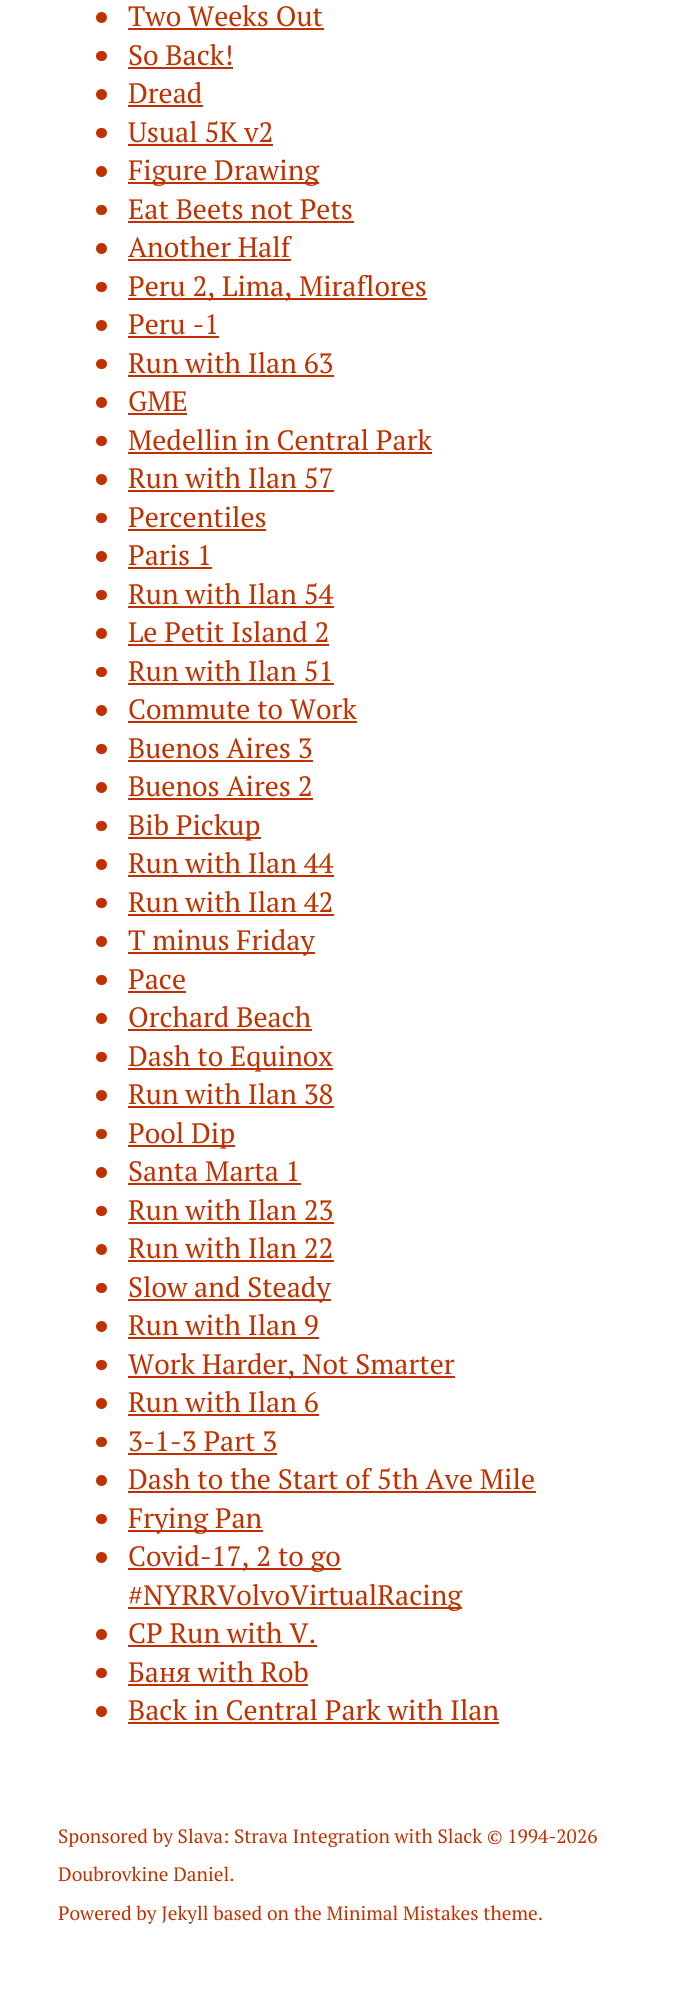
#include <cairo.h>
#include <math.h>
#include <stddef.h>

static cairo_t *ctx;

static void use_color(int r, int g, int b) {
    cairo_set_source_rgb(ctx, r / 255.0, g / 255.0, b / 255.0);
}

static void round_rect(double x, double y, double w, double h, double r) {
    cairo_new_sub_path(ctx);
    cairo_arc(ctx, x + w - r, y + h - r, r, 0, M_PI / 2);
    cairo_arc(ctx, x + r, y + h - r, r, M_PI / 2, M_PI);
    cairo_arc(ctx, x + r, y + r, r, M_PI, 1.5 * M_PI);
    cairo_arc(ctx, x + w - r, y + r, r, 1.5 * M_PI, 2 * M_PI);
    cairo_close_path(ctx);
}

int main(void) {
    cairo_surface_t *surface = cairo_image_surface_create(CAIRO_FORMAT_RGB24, 695, 2011);
    ctx = cairo_create(surface);
    cairo_font_options_t *options = cairo_font_options_create();
    cairo_font_options_set_hint_metrics(options, CAIRO_HINT_METRICS_OFF);
    cairo_font_options_set_hint_style(options, CAIRO_HINT_STYLE_NONE);
    cairo_set_font_options(ctx, options);
    cairo_set_miter_limit(ctx, 4);
    use_color(255, 255, 255);
    cairo_paint(ctx);
    use_color(193, 49, 0);
    cairo_arc(ctx, 101.5, 17.5, 5.5, 0, 2 * M_PI);
    cairo_fill(ctx);
    cairo_select_font_face(ctx, "PT Serif", CAIRO_FONT_SLANT_NORMAL, CAIRO_FONT_WEIGHT_NORMAL);
    cairo_set_font_size(ctx, 28);
    cairo_move_to(ctx, 128, 26);
    cairo_show_text(ctx, "Two Weeks Out");
    cairo_rectangle(ctx, 128, 28, 196, 2);
    cairo_fill(ctx);
    round_rect(96, 51, 11, 10, 5);
    cairo_fill(ctx);
    cairo_move_to(ctx, 128, 65);
    cairo_show_text(ctx, "So Back!");
    cairo_rectangle(ctx, 128, 67, 105, 2);
    cairo_fill(ctx);
    cairo_arc(ctx, 101.5, 94.5, 5.5, 0, 2 * M_PI);
    cairo_fill(ctx);
    cairo_move_to(ctx, 128, 103);
    cairo_show_text(ctx, "Dread");
    cairo_rectangle(ctx, 128, 105, 75, 2);
    cairo_fill(ctx);
    round_rect(96, 128, 11, 10, 5);
    cairo_fill(ctx);
    cairo_move_to(ctx, 128, 142);
    cairo_show_text(ctx, "Usual 5K v2");
    cairo_rectangle(ctx, 128, 144, 145, 2);
    cairo_fill(ctx);
    cairo_arc(ctx, 101.5, 171.5, 5.5, 0, 2 * M_PI);
    cairo_fill(ctx);
    cairo_rectangle(ctx, 128, 182, 191, 2);
    cairo_fill(ctx);
    cairo_move_to(ctx, 128, 180);
    cairo_show_text(ctx, "Figure Drawing");
    round_rect(96, 205, 11, 10, 5);
    cairo_fill(ctx);
    cairo_move_to(ctx, 128, 219);
    cairo_show_text(ctx, "Eat Beets not Pets");
    cairo_rectangle(ctx, 128, 221, 226, 2);
    cairo_fill(ctx);
    cairo_arc(ctx, 101.5, 248.5, 5.5, 0, 2 * M_PI);
    cairo_fill(ctx);
    cairo_move_to(ctx, 128, 257);
    cairo_show_text(ctx, "Another Half");
    cairo_rectangle(ctx, 128, 259, 163, 2);
    cairo_fill(ctx);
    round_rect(96, 282, 11, 10, 5);
    cairo_fill(ctx);
    cairo_rectangle(ctx, 128, 298, 299, 2);
    cairo_fill(ctx);
    cairo_move_to(ctx, 128, 296);
    cairo_show_text(ctx, "Peru 2, Lima, Miraflores");
    cairo_new_path(ctx);
    cairo_arc(ctx, 101.5, 325.5, 5.5, 0, 2 * M_PI);
    cairo_fill(ctx);
    cairo_move_to(ctx, 128, 334);
    cairo_show_text(ctx, "Peru -1");
    cairo_rectangle(ctx, 128, 336, 91, 2);
    cairo_fill(ctx);
    round_rect(96, 359, 11, 10, 5);
    cairo_fill(ctx);
    cairo_move_to(ctx, 128, 373);
    cairo_show_text(ctx, "Run with Ilan 63");
    cairo_rectangle(ctx, 128, 375, 206, 2);
    cairo_fill(ctx);
    cairo_arc(ctx, 101.5, 402.5, 5.5, 0, 2 * M_PI);
    cairo_fill(ctx);
    cairo_move_to(ctx, 128, 411);
    cairo_show_text(ctx, "GME");
    cairo_rectangle(ctx, 128, 413, 59, 2);
    cairo_fill(ctx);
    round_rect(96, 436, 11, 10, 5);
    cairo_fill(ctx);
    cairo_move_to(ctx, 128, 450);
    cairo_show_text(ctx, "Medellin in Central Park");
    cairo_rectangle(ctx, 128, 452, 304, 2);
    cairo_fill(ctx);
    cairo_arc(ctx, 101.5, 479.5, 5.5, 0, 2 * M_PI);
    cairo_fill(ctx);
    cairo_move_to(ctx, 128, 488);
    cairo_show_text(ctx, "Run with Ilan 57");
    cairo_rectangle(ctx, 128, 490, 206, 2);
    cairo_fill(ctx);
    round_rect(96, 513, 11, 10, 5);
    cairo_fill(ctx);
    cairo_move_to(ctx, 128, 527);
    cairo_show_text(ctx, "Percentiles");
    cairo_rectangle(ctx, 128, 529, 138, 2);
    cairo_fill(ctx);
    cairo_arc(ctx, 101.5, 556.5, 5.5, 0, 2 * M_PI);
    cairo_fill(ctx);
    cairo_move_to(ctx, 128, 565);
    cairo_show_text(ctx, "Paris 1");
    cairo_rectangle(ctx, 128, 567, 84, 2);
    cairo_fill(ctx);
    round_rect(96, 590, 11, 10, 5);
    cairo_fill(ctx);
    cairo_move_to(ctx, 128, 604);
    cairo_show_text(ctx, "Run with Ilan 54");
    cairo_rectangle(ctx, 128, 606, 206, 2);
    cairo_fill(ctx);
    cairo_arc(ctx, 101.5, 633.5, 5.5, 0, 2 * M_PI);
    cairo_fill(ctx);
    cairo_move_to(ctx, 128, 642);
    cairo_show_text(ctx, "Le Petit Island 2");
    cairo_rectangle(ctx, 128, 644, 201, 2);
    cairo_fill(ctx);
    round_rect(96, 667, 11, 10, 5);
    cairo_fill(ctx);
    cairo_move_to(ctx, 128, 681);
    cairo_show_text(ctx, "Run with Ilan 51");
    cairo_rectangle(ctx, 128, 683, 206, 2);
    cairo_fill(ctx);
    cairo_arc(ctx, 101.5, 710.5, 5.5, 0, 2 * M_PI);
    cairo_fill(ctx);
    cairo_move_to(ctx, 128, 719);
    cairo_show_text(ctx, "Commute to Work");
    cairo_rectangle(ctx, 128, 721, 229, 2);
    cairo_fill(ctx);
    round_rect(96, 744, 11, 10, 5);
    cairo_fill(ctx);
    cairo_move_to(ctx, 128, 758);
    cairo_show_text(ctx, "Buenos Aires 3");
    cairo_rectangle(ctx, 128, 760, 185, 2);
    cairo_fill(ctx);
    cairo_arc(ctx, 101.5, 787.5, 5.5, 0, 2 * M_PI);
    cairo_fill(ctx);
    cairo_move_to(ctx, 128, 796);
    cairo_show_text(ctx, "Buenos Aires 2");
    cairo_rectangle(ctx, 128, 798, 185, 2);
    cairo_fill(ctx);
    round_rect(96, 821, 11, 10, 5);
    cairo_fill(ctx);
    cairo_rectangle(ctx, 128, 837, 133, 2);
    cairo_fill(ctx);
    cairo_move_to(ctx, 128, 835);
    cairo_show_text(ctx, "Bib Pickup");
    cairo_new_path(ctx);
    cairo_arc(ctx, 101.5, 864.5, 5.5, 0, 2 * M_PI);
    cairo_fill(ctx);
    cairo_move_to(ctx, 128, 873);
    cairo_show_text(ctx, "Run with Ilan 44");
    cairo_rectangle(ctx, 128, 875, 206, 2);
    cairo_fill(ctx);
    round_rect(96, 898, 11, 10, 5);
    cairo_fill(ctx);
    cairo_move_to(ctx, 128, 912);
    cairo_show_text(ctx, "Run with Ilan 42");
    cairo_rectangle(ctx, 128, 914, 206, 2);
    cairo_fill(ctx);
    cairo_arc(ctx, 101.5, 941.5, 5.5, 0, 2 * M_PI);
    cairo_fill(ctx);
    cairo_rectangle(ctx, 128, 952, 187, 2);
    cairo_fill(ctx);
    cairo_move_to(ctx, 128, 950);
    cairo_show_text(ctx, "T minus Friday");
    round_rect(96, 975, 11, 10, 5);
    cairo_fill(ctx);
    cairo_move_to(ctx, 128, 989);
    cairo_show_text(ctx, "Pace");
    cairo_rectangle(ctx, 128, 991, 58, 2);
    cairo_fill(ctx);
    cairo_arc(ctx, 101.5, 1018.5, 5.5, 0, 2 * M_PI);
    cairo_fill(ctx);
    cairo_move_to(ctx, 128, 1027);
    cairo_show_text(ctx, "Orchard Beach");
    cairo_rectangle(ctx, 128, 1029, 184, 2);
    cairo_fill(ctx);
    round_rect(96, 1052, 11, 10, 5);
    cairo_fill(ctx);
    cairo_rectangle(ctx, 128, 1068, 205, 2);
    cairo_fill(ctx);
    cairo_move_to(ctx, 128, 1066);
    cairo_show_text(ctx, "Dash to Equinox");
    cairo_new_path(ctx);
    cairo_arc(ctx, 101.5, 1095.5, 5.5, 0, 2 * M_PI);
    cairo_fill(ctx);
    cairo_move_to(ctx, 128, 1104);
    cairo_show_text(ctx, "Run with Ilan 38");
    cairo_rectangle(ctx, 128, 1106, 206, 2);
    cairo_fill(ctx);
    round_rect(96, 1129, 11, 10, 5);
    cairo_fill(ctx);
    cairo_rectangle(ctx, 128, 1145, 107, 2);
    cairo_fill(ctx);
    cairo_move_to(ctx, 128, 1143);
    cairo_show_text(ctx, "Pool Dip");
    cairo_new_path(ctx);
    cairo_arc(ctx, 101.5, 1172.5, 5.5, 0, 2 * M_PI);
    cairo_fill(ctx);
    cairo_move_to(ctx, 128, 1181);
    cairo_show_text(ctx, "Santa Marta 1");
    cairo_rectangle(ctx, 128, 1183, 173, 2);
    cairo_fill(ctx);
    round_rect(96, 1206, 11, 10, 5);
    cairo_fill(ctx);
    cairo_move_to(ctx, 128, 1220);
    cairo_show_text(ctx, "Run with Ilan 23");
    cairo_rectangle(ctx, 128, 1222, 206, 2);
    cairo_fill(ctx);
    cairo_arc(ctx, 101.5, 1249.5, 5.5, 0, 2 * M_PI);
    cairo_fill(ctx);
    cairo_move_to(ctx, 128, 1258);
    cairo_show_text(ctx, "Run with Ilan 22");
    cairo_rectangle(ctx, 128, 1260, 206, 2);
    cairo_fill(ctx);
    round_rect(96, 1283, 11, 10, 5);
    cairo_fill(ctx);
    cairo_rectangle(ctx, 128, 1299, 203, 2);
    cairo_fill(ctx);
    cairo_move_to(ctx, 128, 1297);
    cairo_show_text(ctx, "Slow and Steady");
    cairo_new_path(ctx);
    cairo_arc(ctx, 101.5, 1326.5, 5.5, 0, 2 * M_PI);
    cairo_fill(ctx);
    cairo_move_to(ctx, 128, 1335);
    cairo_show_text(ctx, "Run with Ilan 9");
    cairo_rectangle(ctx, 128, 1337, 191, 2);
    cairo_fill(ctx);
    round_rect(96, 1360, 11, 10, 5);
    cairo_fill(ctx);
    cairo_rectangle(ctx, 128, 1376, 327, 2);
    cairo_fill(ctx);
    cairo_move_to(ctx, 128, 1374);
    cairo_show_text(ctx, "Work Harder, Not Smarter");
    cairo_new_path(ctx);
    cairo_arc(ctx, 101.5, 1403.5, 5.5, 0, 2 * M_PI);
    cairo_fill(ctx);
    cairo_move_to(ctx, 128, 1412);
    cairo_show_text(ctx, "Run with Ilan 6");
    cairo_rectangle(ctx, 128, 1414, 191, 2);
    cairo_fill(ctx);
    round_rect(96, 1437, 11, 10, 5);
    cairo_fill(ctx);
    cairo_move_to(ctx, 128, 1451);
    cairo_show_text(ctx, "3-1-3 Part 3");
    cairo_rectangle(ctx, 128, 1453, 149, 2);
    cairo_fill(ctx);
    cairo_arc(ctx, 101.5, 1480.5, 5.5, 0, 2 * M_PI);
    cairo_fill(ctx);
    cairo_move_to(ctx, 128, 1489);
    cairo_show_text(ctx, "Dash to the Start of 5th Ave Mile");
    cairo_rectangle(ctx, 128, 1491, 408, 2);
    cairo_fill(ctx);
    round_rect(96, 1514, 11, 10, 5);
    cairo_fill(ctx);
    cairo_rectangle(ctx, 128, 1530, 135, 2);
    cairo_fill(ctx);
    cairo_move_to(ctx, 128, 1528);
    cairo_show_text(ctx, "Frying Pan");
    cairo_new_path(ctx);
    cairo_arc(ctx, 101.5, 1557.5, 5.5, 0, 2 * M_PI);
    cairo_fill(ctx);
    cairo_rectangle(ctx, 128, 1568, 213, 2);
    cairo_fill(ctx);
    cairo_move_to(ctx, 128, 1566);
    cairo_show_text(ctx, "Covid-17, 2 to go");
    cairo_rectangle(ctx, 128, 1607, 334, 2);
    cairo_fill(ctx);
    cairo_move_to(ctx, 128, 1605);
    cairo_show_text(ctx, "#NYRRVolvoVirtualRacing");
    cairo_new_path(ctx);
    cairo_arc(ctx, 101.5, 1634.5, 5.5, 0, 2 * M_PI);
    cairo_fill(ctx);
    cairo_move_to(ctx, 128, 1643);
    cairo_show_text(ctx, "CP Run with V.");
    cairo_rectangle(ctx, 128, 1645, 189, 2);
    cairo_fill(ctx);
    round_rect(96, 1668, 11, 10, 5);
    cairo_fill(ctx);
    cairo_move_to(ctx, 128, 1682);
    cairo_show_text(ctx, "Баня with Rob");
    cairo_rectangle(ctx, 128, 1684, 180, 2);
    cairo_fill(ctx);
    cairo_arc(ctx, 101.5, 1711.5, 5.5, 0, 2 * M_PI);
    cairo_fill(ctx);
    cairo_move_to(ctx, 128, 1720);
    cairo_show_text(ctx, "Back in Central Park with Ilan");
    cairo_rectangle(ctx, 128, 1722, 371, 2);
    cairo_fill(ctx);
    cairo_set_font_size(ctx, 19.25);
    cairo_move_to(ctx, 58, 1843);
    cairo_show_text(ctx, "Sponsored by Slava: Strava Integration with Slack © 1994-2026");
    cairo_move_to(ctx, 58, 1881);
    cairo_show_text(ctx, "Doubrovkine Daniel.");
    cairo_move_to(ctx, 58, 1920);
    cairo_show_text(ctx, "Powered by Jekyll based on the Minimal Mistakes theme.");
    cairo_surface_write_to_png(surface, "result.png");
    cairo_font_options_destroy(options);
    cairo_destroy(ctx);
    cairo_surface_destroy(surface);
    return 0;
}
